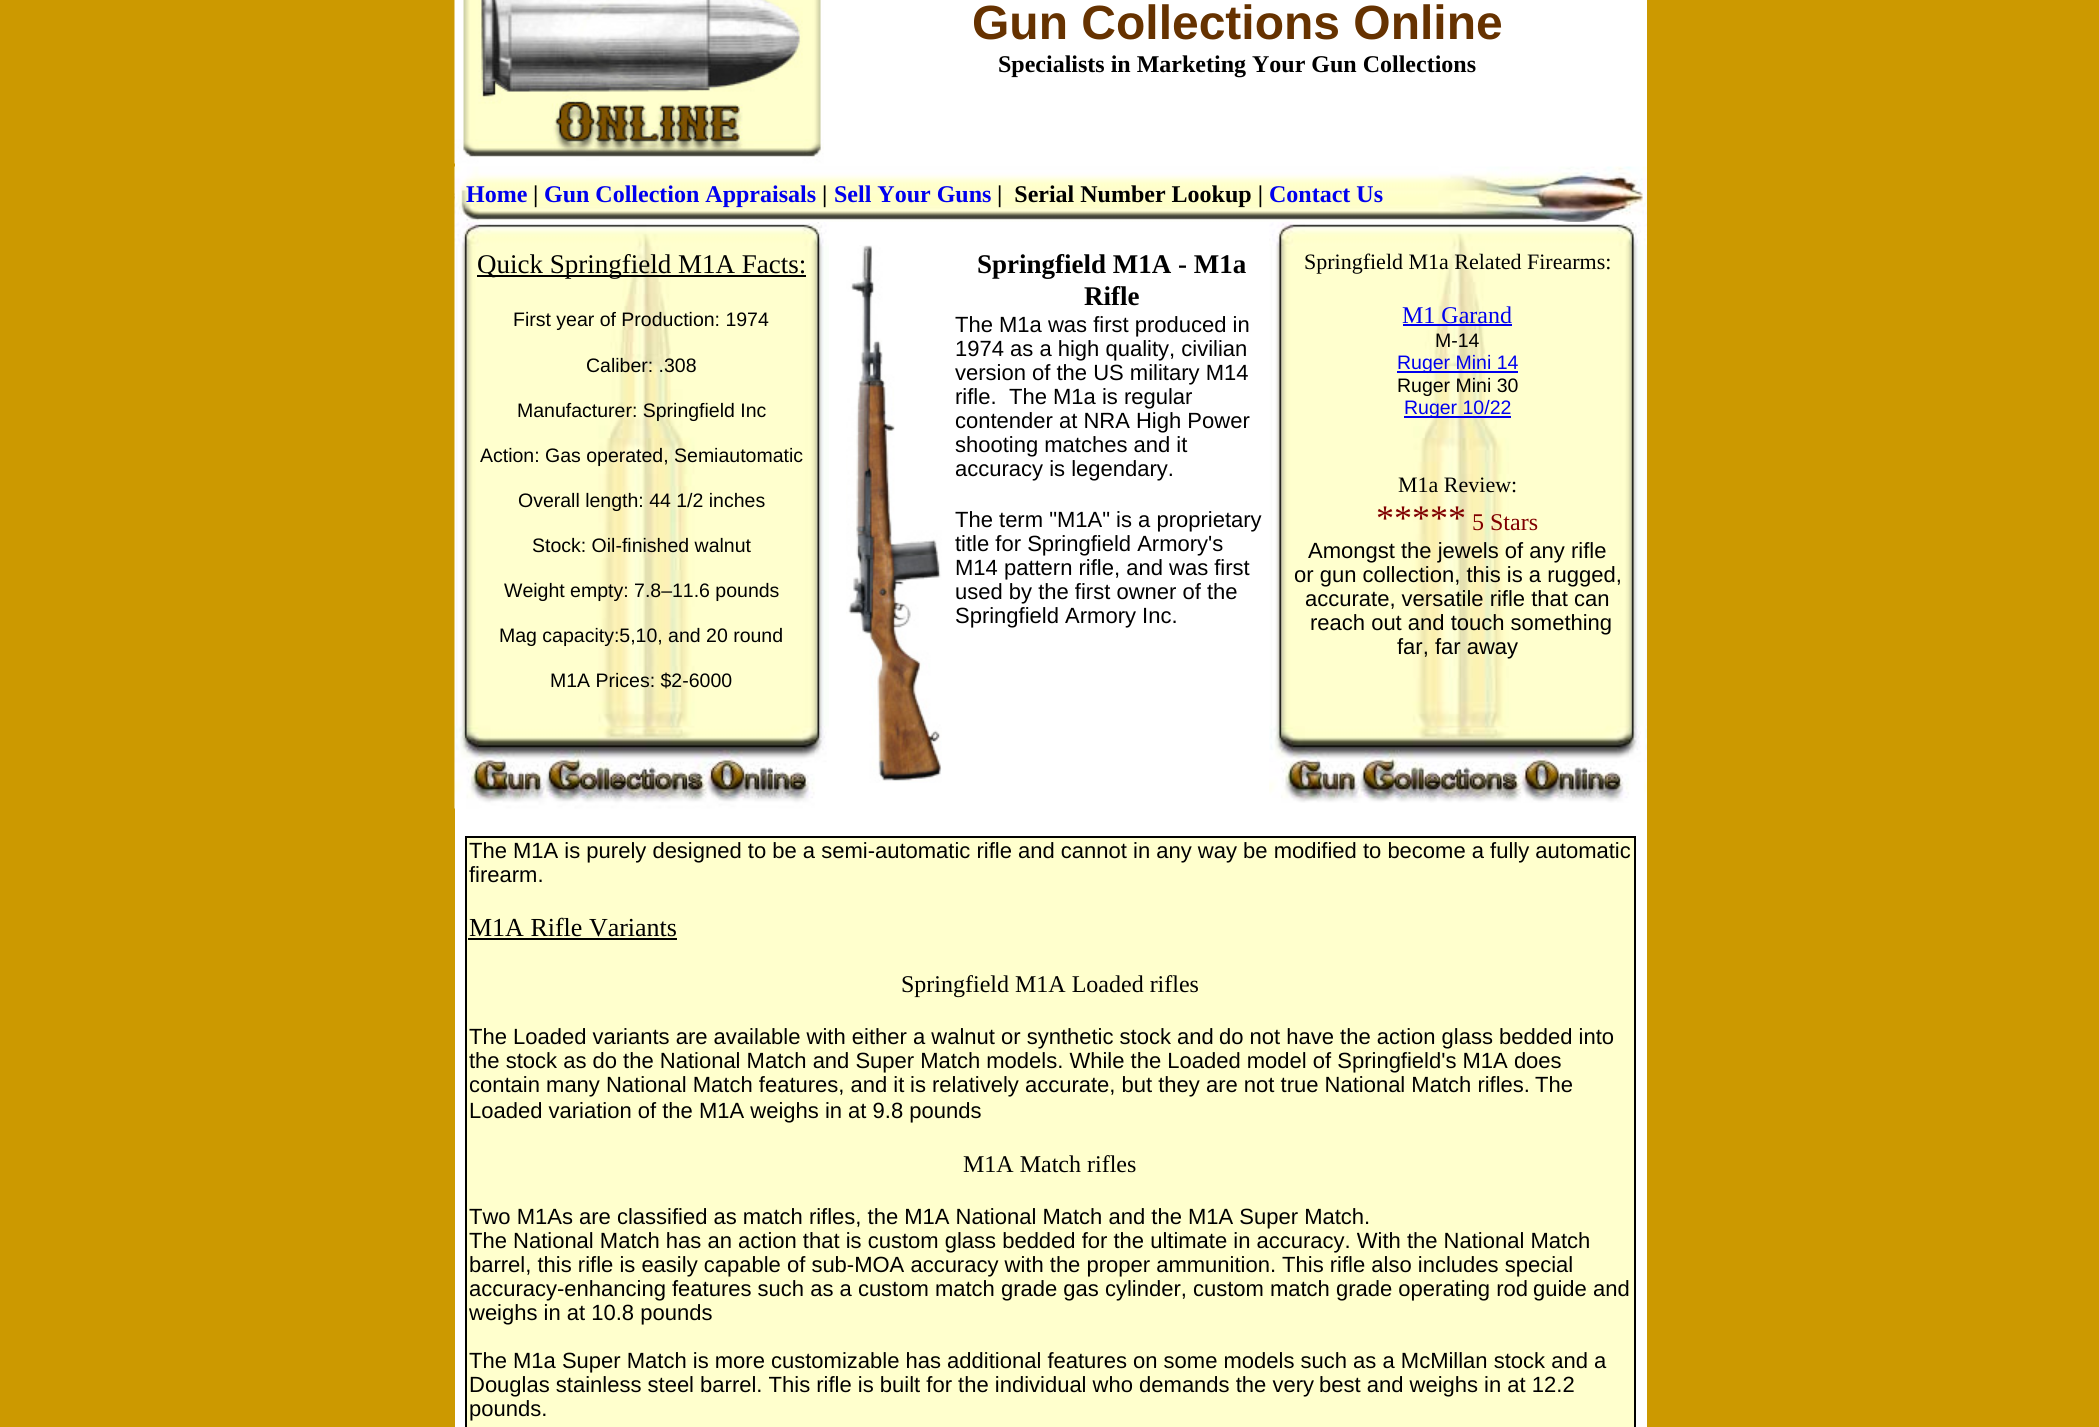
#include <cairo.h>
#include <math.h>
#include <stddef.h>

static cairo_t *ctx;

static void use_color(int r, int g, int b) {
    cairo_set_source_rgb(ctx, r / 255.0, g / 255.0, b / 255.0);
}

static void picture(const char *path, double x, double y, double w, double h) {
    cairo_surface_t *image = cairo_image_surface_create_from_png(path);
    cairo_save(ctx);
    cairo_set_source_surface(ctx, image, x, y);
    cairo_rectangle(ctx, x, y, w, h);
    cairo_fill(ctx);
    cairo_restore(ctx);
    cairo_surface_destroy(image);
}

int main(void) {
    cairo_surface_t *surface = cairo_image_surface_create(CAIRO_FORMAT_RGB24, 2099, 1427);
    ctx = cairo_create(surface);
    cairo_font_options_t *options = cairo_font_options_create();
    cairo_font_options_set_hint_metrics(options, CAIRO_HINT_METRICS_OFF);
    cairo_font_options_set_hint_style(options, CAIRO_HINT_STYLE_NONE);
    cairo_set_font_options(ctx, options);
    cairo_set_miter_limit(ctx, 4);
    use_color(204, 153, 0);
    cairo_paint(ctx);
    use_color(255, 255, 255);
    cairo_rectangle(ctx, 455, 0, 1192, 1427);
    cairo_fill(ctx);
    picture("img1.png", 454, 0, 370, 164);
    cairo_select_font_face(ctx, "Liberation Sans", CAIRO_FONT_SLANT_NORMAL, CAIRO_FONT_WEIGHT_BOLD);
    cairo_set_font_size(ctx, 48);
    use_color(102, 50, 0);
    cairo_move_to(ctx, 972, 39);
    cairo_show_text(ctx, "Gun Collections Online");
    cairo_select_font_face(ctx, "Liberation Serif", CAIRO_FONT_SLANT_NORMAL, CAIRO_FONT_WEIGHT_BOLD);
    cairo_set_font_size(ctx, 24);
    use_color(0, 0, 0);
    cairo_move_to(ctx, 998, 72);
    cairo_show_text(ctx, "Specialists in Marketing Your Gun Collections");
    picture("img2.png", 454, 166, 1193, 56);
    use_color(0, 0, 238);
    cairo_move_to(ctx, 466, 202);
    cairo_show_text(ctx, "Home");
    use_color(0, 0, 0);
    cairo_move_to(ctx, 533, 202);
    cairo_show_text(ctx, "|");
    use_color(0, 0, 238);
    cairo_move_to(ctx, 544, 202);
    cairo_show_text(ctx, "Gun Collection Appraisals");
    use_color(0, 0, 0);
    cairo_move_to(ctx, 822, 202);
    cairo_show_text(ctx, "|");
    use_color(0, 0, 238);
    cairo_move_to(ctx, 834, 202);
    cairo_show_text(ctx, "Sell Your Guns");
    use_color(0, 0, 0);
    cairo_move_to(ctx, 997, 202);
    cairo_show_text(ctx, "|  Serial Number Lookup |");
    use_color(0, 0, 238);
    cairo_move_to(ctx, 1269, 202);
    cairo_show_text(ctx, "Contact Us");
    picture("img3.png", 454, 222, 375, 587);
    use_color(0, 0, 0);
    cairo_rectangle(ctx, 477, 275, 329, 2);
    cairo_fill(ctx);
    cairo_select_font_face(ctx, "Liberation Serif", CAIRO_FONT_SLANT_NORMAL, CAIRO_FONT_WEIGHT_NORMAL);
    cairo_set_font_size(ctx, 27);
    cairo_move_to(ctx, 477, 273);
    cairo_show_text(ctx, "Quick Springfield M1A Facts:");
    cairo_select_font_face(ctx, "Liberation Sans", CAIRO_FONT_SLANT_NORMAL, CAIRO_FONT_WEIGHT_NORMAL);
    cairo_set_font_size(ctx, 19.5);
    cairo_move_to(ctx, 513, 326);
    cairo_show_text(ctx, "First year of Production: 1974");
    cairo_move_to(ctx, 586, 372);
    cairo_show_text(ctx, "Caliber: .308");
    cairo_move_to(ctx, 517, 417);
    cairo_show_text(ctx, "Manufacturer: Springfield Inc");
    cairo_move_to(ctx, 480, 462);
    cairo_show_text(ctx, "Action: Gas operated, Semiautomatic");
    cairo_move_to(ctx, 518, 507);
    cairo_show_text(ctx, "Overall length: 44 1/2 inches");
    cairo_move_to(ctx, 532, 552);
    cairo_show_text(ctx, "Stock: Oil-finished walnut");
    cairo_move_to(ctx, 504, 597);
    cairo_show_text(ctx, "Weight empty: 7.8–11.6 pounds");
    cairo_move_to(ctx, 499, 642);
    cairo_show_text(ctx, "Mag capacity:5,10, and 20 round");
    cairo_move_to(ctx, 550, 687);
    cairo_show_text(ctx, "M1A Prices: $2-6000");
    picture("img4.png", 846, 245, 96, 538);
    cairo_select_font_face(ctx, "Liberation Serif", CAIRO_FONT_SLANT_NORMAL, CAIRO_FONT_WEIGHT_BOLD);
    cairo_set_font_size(ctx, 27);
    cairo_move_to(ctx, 977, 273);
    cairo_show_text(ctx, "Springfield M1A - M1a");
    cairo_move_to(ctx, 1084, 305);
    cairo_show_text(ctx, "Rifle");
    picture("img5.png", 1269, 222, 378, 581);
    cairo_select_font_face(ctx, "Liberation Serif", CAIRO_FONT_SLANT_NORMAL, CAIRO_FONT_WEIGHT_NORMAL);
    cairo_set_font_size(ctx, 22);
    cairo_move_to(ctx, 1304, 269);
    cairo_show_text(ctx, "Springfield M1a Related Firearms:");
    cairo_set_font_size(ctx, 24);
    use_color(0, 0, 238);
    cairo_move_to(ctx, 1402, 323);
    cairo_show_text(ctx, "M1 Garand");
    cairo_rectangle(ctx, 1403, 324, 109, 2);
    cairo_fill(ctx);
    cairo_select_font_face(ctx, "Liberation Sans", CAIRO_FONT_SLANT_NORMAL, CAIRO_FONT_WEIGHT_NORMAL);
    cairo_set_font_size(ctx, 19.5);
    use_color(0, 0, 0);
    cairo_move_to(ctx, 1435, 347);
    cairo_show_text(ctx, "M-14");
    use_color(0, 0, 238);
    cairo_rectangle(ctx, 1397, 371, 121, 2);
    cairo_fill(ctx);
    cairo_move_to(ctx, 1397, 369);
    cairo_show_text(ctx, "Ruger Mini 14");
    use_color(0, 0, 0);
    cairo_move_to(ctx, 1397, 392);
    cairo_show_text(ctx, "Ruger Mini 30");
    use_color(0, 0, 238);
    cairo_rectangle(ctx, 1404, 416, 107, 2);
    cairo_fill(ctx);
    cairo_move_to(ctx, 1404, 414);
    cairo_show_text(ctx, "Ruger 10/22");
    cairo_select_font_face(ctx, "Liberation Serif", CAIRO_FONT_SLANT_NORMAL, CAIRO_FONT_WEIGHT_NORMAL);
    cairo_set_font_size(ctx, 22);
    use_color(0, 0, 0);
    cairo_move_to(ctx, 1398, 492);
    cairo_show_text(ctx, "M1a Review:");
    cairo_set_font_size(ctx, 36);
    use_color(128, 0, 0);
    cairo_move_to(ctx, 1376, 530);
    cairo_show_text(ctx, "*****");
    cairo_set_font_size(ctx, 24);
    cairo_move_to(ctx, 1472, 530);
    cairo_show_text(ctx, "5 Stars");
    cairo_select_font_face(ctx, "Liberation Sans", CAIRO_FONT_SLANT_NORMAL, CAIRO_FONT_WEIGHT_NORMAL);
    cairo_set_font_size(ctx, 22);
    use_color(0, 0, 0);
    cairo_move_to(ctx, 1308, 558);
    cairo_show_text(ctx, "Amongst the jewels of any rifle");
    cairo_move_to(ctx, 1294, 582);
    cairo_show_text(ctx, "or gun collection, this is a rugged,");
    cairo_move_to(ctx, 1305, 606);
    cairo_show_text(ctx, "accurate, versatile rifle that can");
    cairo_move_to(ctx, 1310, 630);
    cairo_show_text(ctx, "reach out and touch something");
    cairo_move_to(ctx, 1397, 654);
    cairo_show_text(ctx, "far, far away");
    cairo_move_to(ctx, 955, 332);
    cairo_show_text(ctx, "The M1a was first produced in");
    cairo_move_to(ctx, 955, 356);
    cairo_show_text(ctx, "1974 as a high quality, civilian");
    cairo_move_to(ctx, 955, 380);
    cairo_show_text(ctx, "version of the US military M14");
    cairo_move_to(ctx, 955, 404);
    cairo_show_text(ctx, "rifle.");
    cairo_move_to(ctx, 1009, 404);
    cairo_show_text(ctx, "The M1a is regular");
    cairo_move_to(ctx, 955, 428);
    cairo_show_text(ctx, "contender at NRA High Power");
    cairo_move_to(ctx, 955, 452);
    cairo_show_text(ctx, "shooting matches and it");
    cairo_move_to(ctx, 955, 476);
    cairo_show_text(ctx, "accuracy is legendary.");
    cairo_move_to(ctx, 955, 527);
    cairo_show_text(ctx, "The term \"M1A\" is a proprietary");
    cairo_move_to(ctx, 955, 551);
    cairo_show_text(ctx, "title for Springfield Armory's");
    cairo_move_to(ctx, 955, 575);
    cairo_show_text(ctx, "M14 pattern rifle, and was first");
    cairo_move_to(ctx, 955, 599);
    cairo_show_text(ctx, "used by the first owner of the");
    cairo_move_to(ctx, 955, 623);
    cairo_show_text(ctx, "Springfield Armory Inc.");
    use_color(255, 255, 205);
    cairo_rectangle(ctx, 467, 838, 1167, 589);
    cairo_fill(ctx);
    use_color(0, 0, 0);
    cairo_rectangle(ctx, 465, 836, 1170, 2);
    cairo_fill(ctx);
    cairo_rectangle(ctx, 1634, 836, 2, 591);
    cairo_fill(ctx);
    cairo_rectangle(ctx, 465, 836, 2, 591);
    cairo_fill(ctx);
    cairo_move_to(ctx, 469, 858);
    cairo_show_text(ctx, "The M1A is purely designed to be a semi-automatic rifle and cannot in any way be modified to become a fully automatic");
    cairo_move_to(ctx, 469, 882);
    cairo_show_text(ctx, "firearm.");
    cairo_select_font_face(ctx, "Liberation Serif", CAIRO_FONT_SLANT_NORMAL, CAIRO_FONT_WEIGHT_NORMAL);
    cairo_set_font_size(ctx, 26);
    cairo_move_to(ctx, 469, 936);
    cairo_show_text(ctx, "M1A Rifle Variants");
    cairo_rectangle(ctx, 468, 938, 209, 2);
    cairo_fill(ctx);
    cairo_set_font_size(ctx, 24);
    cairo_move_to(ctx, 901, 992);
    cairo_show_text(ctx, "Springfield M1A Loaded rifles");
    cairo_select_font_face(ctx, "Liberation Sans", CAIRO_FONT_SLANT_NORMAL, CAIRO_FONT_WEIGHT_NORMAL);
    cairo_set_font_size(ctx, 22);
    cairo_move_to(ctx, 469, 1044);
    cairo_show_text(ctx, "The Loaded variants are available with either a walnut or synthetic stock and");
    cairo_move_to(ctx, 1219, 1044);
    cairo_show_text(ctx, "do not have the action glass bedded into");
    cairo_move_to(ctx, 469, 1068);
    cairo_show_text(ctx, "the stock as do the National Match and Super Match models. While the Loaded model of Springfield's M1A does");
    cairo_move_to(ctx, 469, 1092);
    cairo_show_text(ctx, "contain many National Match features, and it");
    cairo_move_to(ctx, 910, 1092);
    cairo_show_text(ctx, "is relatively accurate, but they are not true National Match rifles.");
    cairo_move_to(ctx, 1535, 1092);
    cairo_show_text(ctx, "The");
    cairo_move_to(ctx, 469, 1118);
    cairo_show_text(ctx, "Loaded variation of the M1A weighs in at 9.8 pounds");
    cairo_select_font_face(ctx, "Liberation Serif", CAIRO_FONT_SLANT_NORMAL, CAIRO_FONT_WEIGHT_NORMAL);
    cairo_set_font_size(ctx, 24);
    cairo_move_to(ctx, 963, 1172);
    cairo_show_text(ctx, "M1A Match rifles");
    cairo_select_font_face(ctx, "Liberation Sans", CAIRO_FONT_SLANT_NORMAL, CAIRO_FONT_WEIGHT_NORMAL);
    cairo_set_font_size(ctx, 22);
    cairo_move_to(ctx, 469, 1224);
    cairo_show_text(ctx, "Two M1As are classified as match rifles, the M1A National Match and the M1A Super Match.");
    cairo_move_to(ctx, 469, 1248);
    cairo_show_text(ctx, "The National Match has an action that is custom glass bedded for the ultimate in accuracy. With the National Match");
    cairo_move_to(ctx, 469, 1272);
    cairo_show_text(ctx, "barrel, this rifle is easily capable of sub-MOA accuracy with the proper ammunition. This rifle also includes special");
    cairo_move_to(ctx, 469, 1296);
    cairo_show_text(ctx, "accuracy-enhancing features such as a custom match grade gas cylinder, custom match grade operating rod");
    cairo_move_to(ctx, 1533, 1296);
    cairo_show_text(ctx, "guide and");
    cairo_move_to(ctx, 469, 1320);
    cairo_show_text(ctx, "weighs in at 10.8 pounds");
    cairo_move_to(ctx, 469, 1368);
    cairo_show_text(ctx, "The M1a Super Match is more customizable has additional features on some models such as a McMillan stock and a");
    cairo_move_to(ctx, 469, 1392);
    cairo_show_text(ctx, "Douglas stainless steel barrel. This rifle is built for the individual who demands the very");
    cairo_move_to(ctx, 1319, 1392);
    cairo_show_text(ctx, "best and weighs in at 12.2");
    cairo_move_to(ctx, 469, 1416);
    cairo_show_text(ctx, "pounds.");
    cairo_surface_write_to_png(surface, "result.png");
    cairo_font_options_destroy(options);
    cairo_destroy(ctx);
    cairo_surface_destroy(surface);
    return 0;
}
